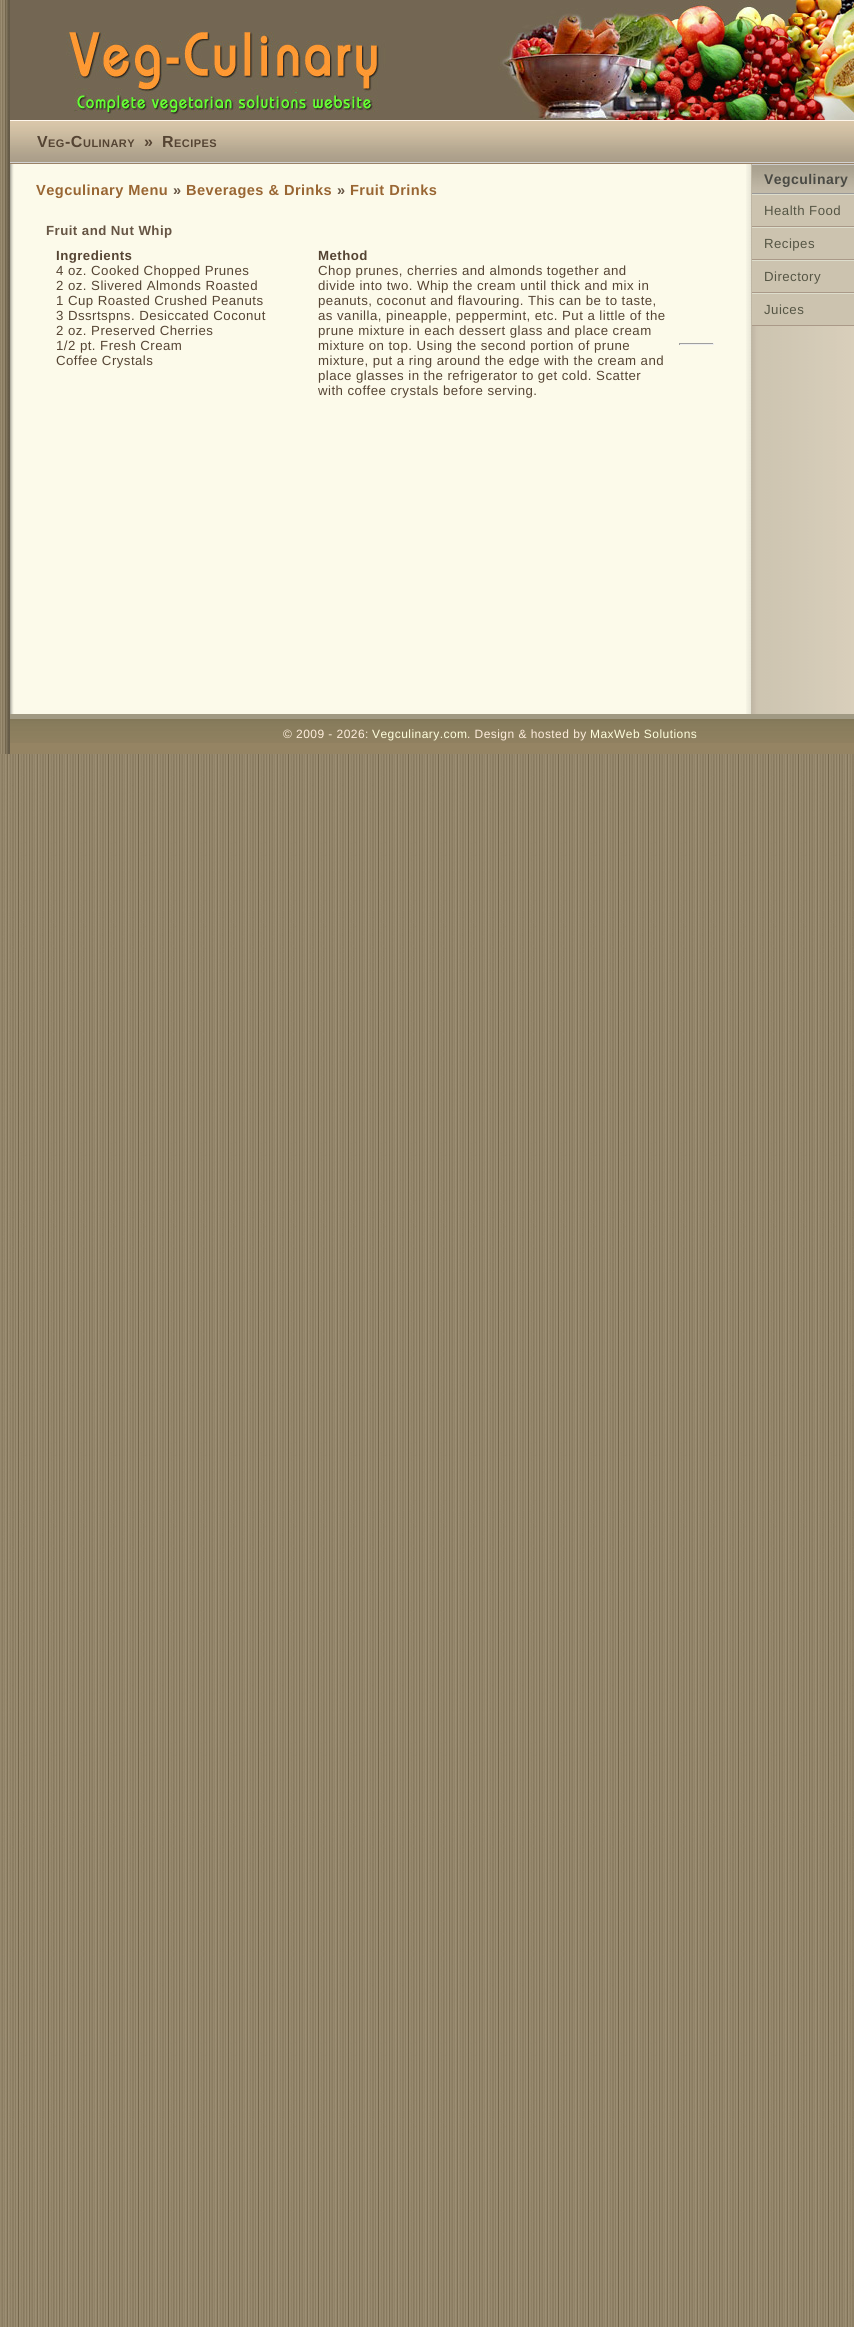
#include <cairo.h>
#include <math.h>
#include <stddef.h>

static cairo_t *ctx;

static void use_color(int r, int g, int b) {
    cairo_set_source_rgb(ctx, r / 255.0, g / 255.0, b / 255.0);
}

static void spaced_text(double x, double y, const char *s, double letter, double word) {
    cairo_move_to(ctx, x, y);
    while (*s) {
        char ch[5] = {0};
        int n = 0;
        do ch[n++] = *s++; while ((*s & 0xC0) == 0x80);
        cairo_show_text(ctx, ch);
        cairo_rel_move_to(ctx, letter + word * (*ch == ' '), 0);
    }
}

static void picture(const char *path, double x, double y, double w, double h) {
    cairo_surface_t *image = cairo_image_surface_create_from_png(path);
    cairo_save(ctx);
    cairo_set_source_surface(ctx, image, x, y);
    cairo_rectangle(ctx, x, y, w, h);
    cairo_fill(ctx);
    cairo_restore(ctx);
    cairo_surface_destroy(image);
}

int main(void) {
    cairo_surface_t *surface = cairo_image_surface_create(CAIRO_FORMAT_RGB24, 854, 2327);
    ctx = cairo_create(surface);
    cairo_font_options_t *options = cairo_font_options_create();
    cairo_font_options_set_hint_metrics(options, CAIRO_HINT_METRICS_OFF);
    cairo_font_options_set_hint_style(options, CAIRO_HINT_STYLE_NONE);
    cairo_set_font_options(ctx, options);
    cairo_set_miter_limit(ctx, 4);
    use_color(255, 255, 255);
    cairo_paint(ctx);
    picture("img1.png", 0, 754, 854, 1573);
    picture("img2.png", 0, 0, 854, 754);
    picture("img3.png", 10, 0, 844, 120);
    picture("img4.png", 10, 120, 844, 44);
    cairo_select_font_face(ctx, "Liberation Sans", CAIRO_FONT_SLANT_NORMAL, CAIRO_FONT_WEIGHT_BOLD);
    cairo_set_font_size(ctx, 16);
    use_color(85, 68, 51);
    spaced_text(37, 147, "V", 0.45, 0);
    cairo_set_font_size(ctx, 11);
    spaced_text(48, 147, "EG", 0.45, 0);
    cairo_set_font_size(ctx, 16);
    spaced_text(65, 147, "-C", 0.45, 0);
    cairo_set_font_size(ctx, 11);
    spaced_text(83, 147, "ULINARY", 0.45, 0);
    cairo_set_font_size(ctx, 16);
    spaced_text(144, 147, "»", 0.45, 0);
    spaced_text(162, 147, "R", 0.45, 0);
    cairo_set_font_size(ctx, 11);
    spaced_text(174, 147, "ECIPES", 0.45, 0);
    cairo_set_font_size(ctx, 14.6);
    use_color(153, 102, 51);
    spaced_text(36, 195, "Vegculinary Menu", 0.45, 0);
    use_color(102, 85, 68);
    spaced_text(173, 195, "»", 0.45, 0);
    use_color(153, 102, 51);
    spaced_text(186, 195, "Beverages & Drinks", 0.45, 0);
    use_color(102, 85, 68);
    spaced_text(337, 195, "»", 0.45, 0);
    use_color(153, 102, 51);
    spaced_text(350, 195, "Fruit Drinks", 0.45, 0);
    cairo_set_font_size(ctx, 13.25);
    use_color(102, 85, 68);
    spaced_text(46, 235, "Fruit and Nut Whip", 0.45, 0);
    use_color(85, 68, 51);
    spaced_text(56, 260, "Ingredients", 0.45, 0);
    cairo_select_font_face(ctx, "Liberation Sans", CAIRO_FONT_SLANT_NORMAL, CAIRO_FONT_WEIGHT_NORMAL);
    spaced_text(56, 275, "4 oz. Cooked Chopped Prunes", 0.45, 0);
    spaced_text(56, 290, "2 oz. Slivered Almonds Roasted", 0.45, 0);
    spaced_text(56, 305, "1 Cup Roasted Crushed Peanuts", 0.45, 0);
    spaced_text(56, 320, "3 Dssrtspns. Desiccated Coconut", 0.45, 0);
    spaced_text(56, 335, "2 oz. Preserved Cherries", 0.45, 0);
    spaced_text(56, 350, "1/2 pt. Fresh Cream", 0.45, 0);
    spaced_text(56, 365, "Coffee Crystals", 0.45, 0);
    cairo_select_font_face(ctx, "Liberation Sans", CAIRO_FONT_SLANT_NORMAL, CAIRO_FONT_WEIGHT_BOLD);
    spaced_text(318, 260, "Method", 0.45, 0);
    cairo_select_font_face(ctx, "Liberation Sans", CAIRO_FONT_SLANT_NORMAL, CAIRO_FONT_WEIGHT_NORMAL);
    spaced_text(318, 275, "Chop prunes, cherries and almonds together and", 0.45, 0);
    spaced_text(318, 290, "divide into two. Whip the cream until thick and mix in", 0.45, 0);
    spaced_text(318, 305, "peanuts, coconut and flavouring. This can be to taste,", 0.45, 0);
    spaced_text(318, 320, "as vanilla, pineapple, peppermint, etc. Put a little of the", 0.45, 0);
    spaced_text(318, 335, "prune mixture in each dessert glass and place cream", 0.45, 0);
    spaced_text(318, 350, "mixture on top. Using the second portion of prune", 0.45, 0);
    spaced_text(318, 365, "mixture, put a ring around the edge with the cream and", 0.45, 0);
    spaced_text(318, 380, "place glasses in the refrigerator to get cold. Scatter", 0.45, 0);
    spaced_text(318, 395, "with coffee crystals before serving.", 0.45, 0);
    use_color(159, 159, 159);
    cairo_rectangle(ctx, 679, 343, 35, 1);
    cairo_fill(ctx);
    use_color(238, 238, 238);
    cairo_rectangle(ctx, 713, 343, 1, 2);
    cairo_fill(ctx);
    cairo_rectangle(ctx, 679, 344, 35, 1);
    cairo_fill(ctx);
    use_color(159, 159, 159);
    cairo_rectangle(ctx, 679, 343, 1, 2);
    cairo_fill(ctx);
    picture("img5.png", 752, 165, 102, 28);
    use_color(204, 204, 204);
    cairo_rectangle(ctx, 752, 164, 102, 1);
    cairo_fill(ctx);
    use_color(153, 153, 153);
    cairo_rectangle(ctx, 752, 193, 102, 1);
    cairo_fill(ctx);
    cairo_select_font_face(ctx, "Liberation Sans", CAIRO_FONT_SLANT_NORMAL, CAIRO_FONT_WEIGHT_BOLD);
    cairo_set_font_size(ctx, 14);
    use_color(74, 74, 68);
    spaced_text(764, 184, "Vegculinary", 0.45, 0);
    use_color(221, 221, 204);
    cairo_rectangle(ctx, 752, 194, 102, 1);
    cairo_fill(ctx);
    use_color(170, 153, 136);
    cairo_rectangle(ctx, 752, 226, 102, 1);
    cairo_fill(ctx);
    use_color(204, 195, 175);
    cairo_rectangle(ctx, 752, 195, 102, 31);
    cairo_fill(ctx);
    cairo_select_font_face(ctx, "Liberation Sans", CAIRO_FONT_SLANT_NORMAL, CAIRO_FONT_WEIGHT_NORMAL);
    cairo_set_font_size(ctx, 13.25);
    use_color(85, 85, 68);
    spaced_text(764, 215, "Health Food", 0.45, 0);
    use_color(221, 221, 204);
    cairo_rectangle(ctx, 752, 227, 102, 1);
    cairo_fill(ctx);
    use_color(170, 153, 136);
    cairo_rectangle(ctx, 752, 259, 102, 1);
    cairo_fill(ctx);
    use_color(204, 195, 175);
    cairo_rectangle(ctx, 752, 228, 102, 31);
    cairo_fill(ctx);
    use_color(85, 85, 68);
    spaced_text(764, 248, "Recipes", 0.45, 0);
    use_color(221, 221, 204);
    cairo_rectangle(ctx, 752, 260, 102, 1);
    cairo_fill(ctx);
    use_color(170, 153, 136);
    cairo_rectangle(ctx, 752, 292, 102, 1);
    cairo_fill(ctx);
    use_color(204, 195, 175);
    cairo_rectangle(ctx, 752, 261, 102, 31);
    cairo_fill(ctx);
    use_color(85, 85, 68);
    spaced_text(764, 281, "Directory", 0.45, 0);
    use_color(221, 221, 204);
    cairo_rectangle(ctx, 752, 293, 102, 1);
    cairo_fill(ctx);
    use_color(170, 153, 136);
    cairo_rectangle(ctx, 752, 325, 102, 1);
    cairo_fill(ctx);
    use_color(204, 195, 175);
    cairo_rectangle(ctx, 752, 294, 102, 31);
    cairo_fill(ctx);
    use_color(85, 85, 68);
    spaced_text(764, 314, "Juices", 0.45, 0);
    use_color(149, 132, 99);
    cairo_rectangle(ctx, 10, 743, 844, 11);
    cairo_fill(ctx);
    picture("img6.png", 10, 714, 844, 29);
    cairo_set_font_size(ctx, 12);
    use_color(255, 238, 221);
    spaced_text(283, 738, "© 2009 - 2026:", 0.45, 0);
    use_color(255, 255, 221);
    spaced_text(372, 738, "Vegculinary.com", 0.45, 0);
    use_color(255, 238, 221);
    spaced_text(467, 738, ". Design & hosted by", 0.45, 0);
    use_color(255, 255, 221);
    spaced_text(590, 738, "MaxWeb Solutions", 0.45, 0);
    cairo_surface_write_to_png(surface, "result.png");
    cairo_font_options_destroy(options);
    cairo_destroy(ctx);
    cairo_surface_destroy(surface);
    return 0;
}
